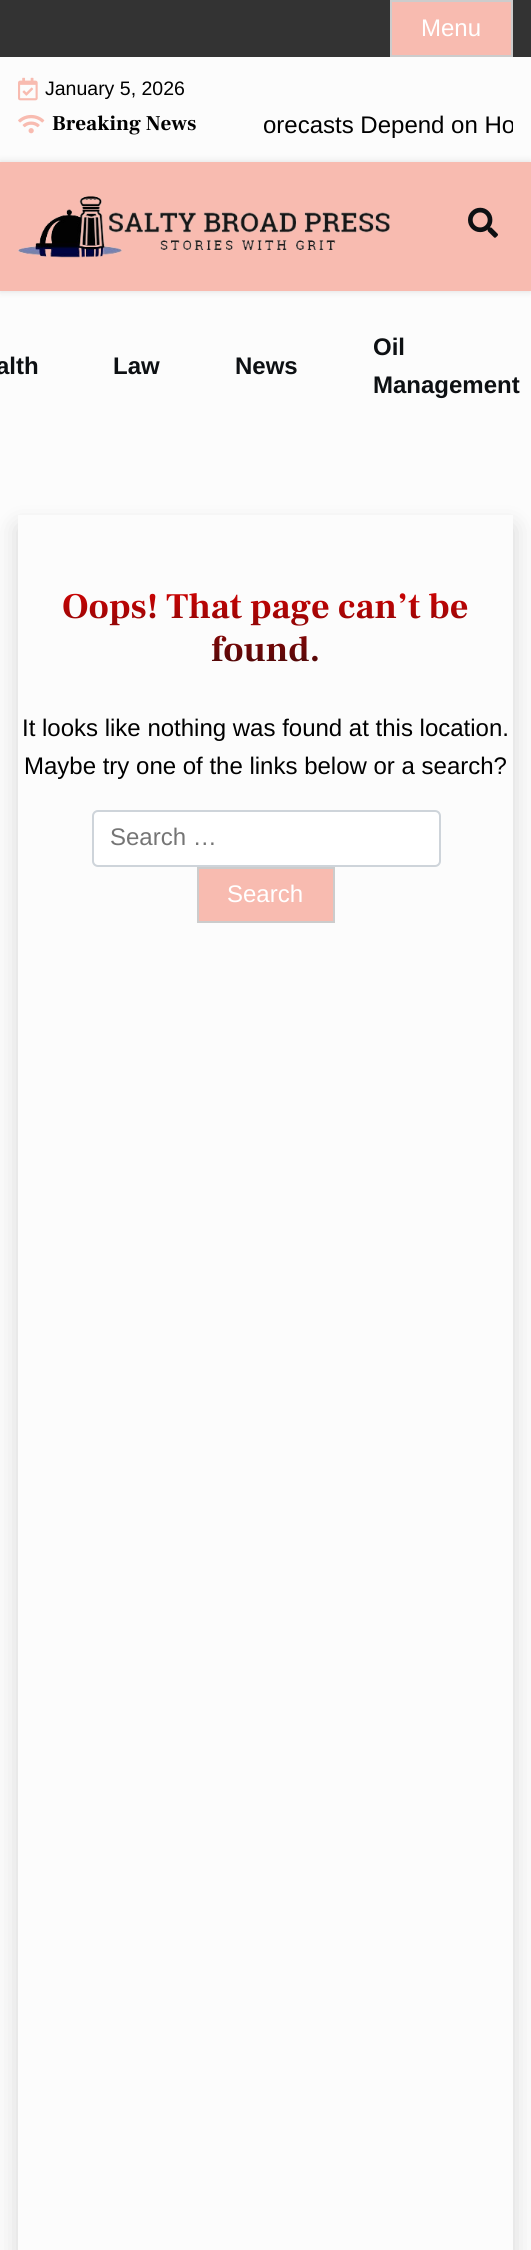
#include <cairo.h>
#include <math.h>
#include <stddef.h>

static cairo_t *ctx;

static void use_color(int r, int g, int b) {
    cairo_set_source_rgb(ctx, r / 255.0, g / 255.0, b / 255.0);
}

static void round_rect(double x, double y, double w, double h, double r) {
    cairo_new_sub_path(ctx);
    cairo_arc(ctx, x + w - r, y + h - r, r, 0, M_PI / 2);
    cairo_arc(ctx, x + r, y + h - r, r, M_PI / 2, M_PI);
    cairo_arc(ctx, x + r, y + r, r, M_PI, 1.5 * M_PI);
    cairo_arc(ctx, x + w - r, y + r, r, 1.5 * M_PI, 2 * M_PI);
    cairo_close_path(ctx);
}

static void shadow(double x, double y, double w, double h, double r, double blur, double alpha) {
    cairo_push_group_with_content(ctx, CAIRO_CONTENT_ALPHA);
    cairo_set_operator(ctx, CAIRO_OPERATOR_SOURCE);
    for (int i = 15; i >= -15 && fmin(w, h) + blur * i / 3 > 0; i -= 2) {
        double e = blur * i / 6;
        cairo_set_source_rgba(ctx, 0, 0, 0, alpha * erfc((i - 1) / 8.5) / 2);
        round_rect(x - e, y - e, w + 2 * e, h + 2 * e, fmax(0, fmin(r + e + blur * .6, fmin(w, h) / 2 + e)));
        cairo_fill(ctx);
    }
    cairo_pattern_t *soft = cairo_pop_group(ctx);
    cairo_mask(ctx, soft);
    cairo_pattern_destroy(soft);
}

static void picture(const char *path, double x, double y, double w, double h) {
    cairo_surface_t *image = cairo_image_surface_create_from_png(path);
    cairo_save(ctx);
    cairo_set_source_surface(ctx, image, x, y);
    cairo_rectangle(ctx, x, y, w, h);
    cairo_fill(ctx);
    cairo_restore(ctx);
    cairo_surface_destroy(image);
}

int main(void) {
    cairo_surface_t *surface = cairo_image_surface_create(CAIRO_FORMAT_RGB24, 531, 2250);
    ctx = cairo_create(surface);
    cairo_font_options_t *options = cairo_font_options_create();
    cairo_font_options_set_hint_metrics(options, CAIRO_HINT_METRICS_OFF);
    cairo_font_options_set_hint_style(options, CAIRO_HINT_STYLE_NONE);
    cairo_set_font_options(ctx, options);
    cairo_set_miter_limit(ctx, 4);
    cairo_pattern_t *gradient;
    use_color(252, 252, 252);
    cairo_paint(ctx);
    use_color(51, 51, 51);
    cairo_rectangle(ctx, 0, 0, 531, 57);
    cairo_fill(ctx);
    use_color(248, 187, 176);
    cairo_rectangle(ctx, 391, 1, 121, 55);
    cairo_fill_preserve(ctx);
    use_color(204, 204, 204);
    cairo_stroke(ctx);
    cairo_select_font_face(ctx, "Liberation Sans", CAIRO_FONT_SLANT_NORMAL, CAIRO_FONT_WEIGHT_NORMAL);
    cairo_set_font_size(ctx, 24);
    use_color(255, 255, 255);
    cairo_move_to(ctx, 421, 36);
    cairo_show_text(ctx, "Menu");
    picture("img1.png", 18, 77, 20, 24);
    cairo_set_font_size(ctx, 19.5);
    use_color(0, 0, 0);
    cairo_move_to(ctx, 45, 95);
    cairo_show_text(ctx, "January 5, 2026");
    picture("img2.png", 18, 114, 27, 20);
    cairo_select_font_face(ctx, "Frank Ruhl Libre", CAIRO_FONT_SLANT_NORMAL, CAIRO_FONT_WEIGHT_BOLD);
    cairo_set_font_size(ctx, 21);
    cairo_move_to(ctx, 52, 130);
    cairo_show_text(ctx, "Breaking News");
    cairo_save(ctx);
    cairo_rectangle(ctx, 258, 105, 255, 39);
    cairo_clip(ctx);
    cairo_select_font_face(ctx, "Liberation Sans", CAIRO_FONT_SLANT_NORMAL, CAIRO_FONT_WEIGHT_NORMAL);
    cairo_set_font_size(ctx, 24);
    cairo_move_to(ctx, 263, 133);
    cairo_show_text(ctx, "orecasts Depend on Ho");
    cairo_restore(ctx);
    use_color(0, 0, 0);
    shadow(0, 162, 531, 129, 0, 4, 0.12);
    use_color(248, 187, 176);
    cairo_rectangle(ctx, 0, 162, 531, 129);
    cairo_fill(ctx);
    picture("img3.png", 18, 196, 372, 62);
    picture("img4.png", 468, 207, 30, 31);
    cairo_select_font_face(ctx, "Liberation Sans", CAIRO_FONT_SLANT_NORMAL, CAIRO_FONT_WEIGHT_BOLD);
    cairo_set_font_size(ctx, 24);
    use_color(13, 16, 19);
    cairo_move_to(ctx, -4, 374);
    cairo_show_text(ctx, "alth");
    cairo_move_to(ctx, 113, 374);
    cairo_show_text(ctx, "Law");
    cairo_move_to(ctx, 235, 374);
    cairo_show_text(ctx, "News");
    cairo_move_to(ctx, 373, 355);
    cairo_show_text(ctx, "Oil");
    cairo_move_to(ctx, 373, 393);
    cairo_show_text(ctx, "Management");
    cairo_save(ctx);
    cairo_set_fill_rule(ctx, CAIRO_FILL_RULE_EVEN_ODD);
    cairo_new_path(ctx);
    cairo_move_to(ctx, 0, 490);
    cairo_line_to(ctx, 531, 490);
    cairo_line_to(ctx, 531, 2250);
    cairo_line_to(ctx, 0, 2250);
    cairo_close_path(ctx);
    cairo_move_to(ctx, 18, 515);
    cairo_line_to(ctx, 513, 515);
    cairo_line_to(ctx, 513, 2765);
    cairo_line_to(ctx, 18, 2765);
    cairo_close_path(ctx);
    cairo_clip(ctx);
    use_color(0, 0, 0);
    shadow(18, 527, 495, 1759, 0, 12, 0.15);
    cairo_restore(ctx);
    cairo_select_font_face(ctx, "Frank Ruhl Libre", CAIRO_FONT_SLANT_NORMAL, CAIRO_FONT_WEIGHT_BOLD);
    cairo_set_font_size(ctx, 36);
    gradient = cairo_pattern_create_linear(266, 586, 266, 673);
    cairo_pattern_add_color_stop_rgba(gradient, 0, 0.839, 0.012, 0.012, 1);
    cairo_pattern_add_color_stop_rgba(gradient, 1, 0.255, 0.035, 0.035, 1);
    cairo_set_source(ctx, gradient);
    cairo_pattern_destroy(gradient);
    cairo_move_to(ctx, 62, 618);
    cairo_show_text(ctx, "Oops! That page can’t be");
    cairo_move_to(ctx, 211, 661);
    cairo_show_text(ctx, "found.");
    cairo_select_font_face(ctx, "Liberation Sans", CAIRO_FONT_SLANT_NORMAL, CAIRO_FONT_WEIGHT_NORMAL);
    cairo_set_font_size(ctx, 24);
    use_color(0, 0, 0);
    cairo_move_to(ctx, 22, 736);
    cairo_show_text(ctx, "It looks like nothing was found at this location.");
    cairo_move_to(ctx, 24, 774);
    cairo_show_text(ctx, "Maybe try one of the links below or a search?");
    use_color(255, 255, 255);
    round_rect(93, 811, 347, 55, 5);
    cairo_fill_preserve(ctx);
    use_color(206, 212, 218);
    cairo_stroke(ctx);
    use_color(117, 117, 117);
    cairo_move_to(ctx, 110, 845);
    cairo_show_text(ctx, "Search …");
    use_color(248, 187, 176);
    cairo_rectangle(ctx, 198, 868, 136, 54);
    cairo_fill_preserve(ctx);
    use_color(204, 204, 204);
    cairo_stroke(ctx);
    use_color(255, 255, 255);
    cairo_move_to(ctx, 227, 902);
    cairo_show_text(ctx, "Search");
    cairo_surface_write_to_png(surface, "result.png");
    cairo_font_options_destroy(options);
    cairo_destroy(ctx);
    cairo_surface_destroy(surface);
    return 0;
}
